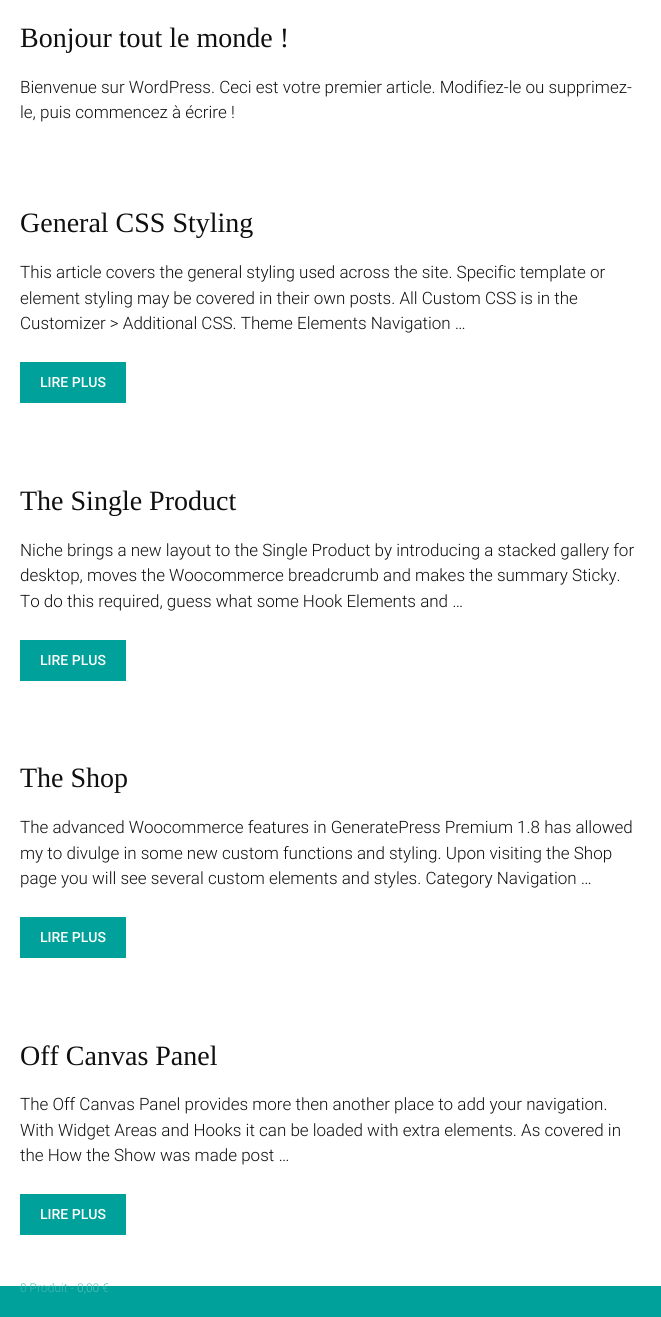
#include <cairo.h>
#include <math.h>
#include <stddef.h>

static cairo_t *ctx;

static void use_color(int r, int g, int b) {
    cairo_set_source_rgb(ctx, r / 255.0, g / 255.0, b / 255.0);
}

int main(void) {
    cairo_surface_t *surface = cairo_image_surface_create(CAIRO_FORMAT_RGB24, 661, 1317);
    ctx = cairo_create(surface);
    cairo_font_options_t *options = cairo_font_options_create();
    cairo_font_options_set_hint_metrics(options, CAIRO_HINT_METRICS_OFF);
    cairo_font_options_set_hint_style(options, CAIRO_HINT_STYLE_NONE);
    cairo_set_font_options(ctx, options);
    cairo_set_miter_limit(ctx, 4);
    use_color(255, 255, 255);
    cairo_paint(ctx);
    cairo_select_font_face(ctx, "Liberation Serif", CAIRO_FONT_SLANT_NORMAL, CAIRO_FONT_WEIGHT_NORMAL);
    cairo_set_font_size(ctx, 28);
    use_color(15, 15, 15);
    cairo_move_to(ctx, 20, 47);
    cairo_show_text(ctx, "Bonjour tout le monde !");
    cairo_select_font_face(ctx, "Roboto Light", CAIRO_FONT_SLANT_NORMAL, CAIRO_FONT_WEIGHT_NORMAL);
    cairo_set_font_size(ctx, 17);
    cairo_move_to(ctx, 20, 93);
    cairo_show_text(ctx, "Bienvenue sur WordPress. Ceci est votre premier article. Modifiez-le ou supprimez-");
    cairo_move_to(ctx, 20, 118);
    cairo_show_text(ctx, "le, puis commencez à écrire !");
    cairo_select_font_face(ctx, "Liberation Serif", CAIRO_FONT_SLANT_NORMAL, CAIRO_FONT_WEIGHT_NORMAL);
    cairo_set_font_size(ctx, 28);
    cairo_move_to(ctx, 20, 232);
    cairo_show_text(ctx, "General CSS Styling");
    cairo_select_font_face(ctx, "Roboto Light", CAIRO_FONT_SLANT_NORMAL, CAIRO_FONT_WEIGHT_NORMAL);
    cairo_set_font_size(ctx, 17);
    cairo_move_to(ctx, 20, 278);
    cairo_show_text(ctx, "This article covers the general styling used across the site. Specific template or");
    cairo_move_to(ctx, 20, 304);
    cairo_show_text(ctx, "element styling may be covered in their own posts. All Custom CSS is in the");
    cairo_move_to(ctx, 20, 329);
    cairo_show_text(ctx, "Customizer > Additional CSS. Theme Elements Navigation …");
    use_color(0, 161, 154);
    cairo_rectangle(ctx, 20, 362, 106, 41);
    cairo_fill(ctx);
    cairo_select_font_face(ctx, "Roboto Medium", CAIRO_FONT_SLANT_NORMAL, CAIRO_FONT_WEIGHT_NORMAL);
    cairo_set_font_size(ctx, 14);
    use_color(255, 255, 255);
    cairo_move_to(ctx, 40, 387);
    cairo_show_text(ctx, "LIRE PLUS");
    cairo_select_font_face(ctx, "Liberation Serif", CAIRO_FONT_SLANT_NORMAL, CAIRO_FONT_WEIGHT_NORMAL);
    cairo_set_font_size(ctx, 28);
    use_color(15, 15, 15);
    cairo_move_to(ctx, 20, 510);
    cairo_show_text(ctx, "The Single Product");
    cairo_select_font_face(ctx, "Roboto Light", CAIRO_FONT_SLANT_NORMAL, CAIRO_FONT_WEIGHT_NORMAL);
    cairo_set_font_size(ctx, 17);
    cairo_move_to(ctx, 20, 556);
    cairo_show_text(ctx, "Niche brings a new layout to the Single Product by introducing a stacked gallery for");
    cairo_move_to(ctx, 20, 581);
    cairo_show_text(ctx, "desktop, moves the Woocommerce breadcrumb and makes the summary Sticky.");
    cairo_move_to(ctx, 20, 607);
    cairo_show_text(ctx, "To do this required, guess what some Hook Elements and …");
    use_color(0, 161, 154);
    cairo_rectangle(ctx, 20, 640, 106, 41);
    cairo_fill(ctx);
    cairo_select_font_face(ctx, "Roboto Medium", CAIRO_FONT_SLANT_NORMAL, CAIRO_FONT_WEIGHT_NORMAL);
    cairo_set_font_size(ctx, 14);
    use_color(255, 255, 255);
    cairo_move_to(ctx, 40, 665);
    cairo_show_text(ctx, "LIRE PLUS");
    cairo_select_font_face(ctx, "Liberation Serif", CAIRO_FONT_SLANT_NORMAL, CAIRO_FONT_WEIGHT_NORMAL);
    cairo_set_font_size(ctx, 28);
    use_color(15, 15, 15);
    cairo_move_to(ctx, 20, 787);
    cairo_show_text(ctx, "The Shop");
    cairo_select_font_face(ctx, "Roboto Light", CAIRO_FONT_SLANT_NORMAL, CAIRO_FONT_WEIGHT_NORMAL);
    cairo_set_font_size(ctx, 17);
    cairo_move_to(ctx, 20, 833);
    cairo_show_text(ctx, "The advanced Woocommerce features in GeneratePress Premium 1.8 has allowed");
    cairo_move_to(ctx, 20, 859);
    cairo_show_text(ctx, "my to divulge in some new custom functions and styling. Upon visiting the Shop");
    cairo_move_to(ctx, 20, 884);
    cairo_show_text(ctx, "page you will see several custom elements and styles. Category Navigation …");
    use_color(0, 161, 154);
    cairo_rectangle(ctx, 20, 917, 106, 41);
    cairo_fill(ctx);
    cairo_select_font_face(ctx, "Roboto Medium", CAIRO_FONT_SLANT_NORMAL, CAIRO_FONT_WEIGHT_NORMAL);
    cairo_set_font_size(ctx, 14);
    use_color(255, 255, 255);
    cairo_move_to(ctx, 40, 942);
    cairo_show_text(ctx, "LIRE PLUS");
    cairo_select_font_face(ctx, "Liberation Serif", CAIRO_FONT_SLANT_NORMAL, CAIRO_FONT_WEIGHT_NORMAL);
    cairo_set_font_size(ctx, 28);
    use_color(15, 15, 15);
    cairo_move_to(ctx, 20, 1065);
    cairo_show_text(ctx, "Off Canvas Panel");
    cairo_select_font_face(ctx, "Roboto Light", CAIRO_FONT_SLANT_NORMAL, CAIRO_FONT_WEIGHT_NORMAL);
    cairo_set_font_size(ctx, 17);
    cairo_move_to(ctx, 20, 1110);
    cairo_show_text(ctx, "The Off Canvas Panel provides more then another place to add your navigation.");
    cairo_move_to(ctx, 20, 1136);
    cairo_show_text(ctx, "With Widget Areas and Hooks it can be loaded with extra elements. As covered in");
    cairo_move_to(ctx, 20, 1161);
    cairo_show_text(ctx, "the How the Show was made post …");
    use_color(0, 161, 154);
    cairo_rectangle(ctx, 20, 1194, 106, 41);
    cairo_fill(ctx);
    cairo_select_font_face(ctx, "Roboto Medium", CAIRO_FONT_SLANT_NORMAL, CAIRO_FONT_WEIGHT_NORMAL);
    cairo_set_font_size(ctx, 14);
    use_color(255, 255, 255);
    cairo_move_to(ctx, 40, 1219);
    cairo_show_text(ctx, "LIRE PLUS");
    use_color(0, 161, 154);
    cairo_rectangle(ctx, 0, 1286, 661, 31);
    cairo_fill(ctx);
    cairo_select_font_face(ctx, "Roboto Light", CAIRO_FONT_SLANT_NORMAL, CAIRO_FONT_WEIGHT_NORMAL);
    cairo_set_font_size(ctx, 12);
    use_color(66, 185, 180);
    cairo_move_to(ctx, 20, 1292);
    cairo_show_text(ctx, "0 Produit -");
    use_color(89, 194, 189);
    cairo_move_to(ctx, 77, 1292);
    cairo_show_text(ctx, "0,00");
    use_color(66, 185, 180);
    cairo_move_to(ctx, 102, 1292);
    cairo_show_text(ctx, "€");
    cairo_surface_write_to_png(surface, "result.png");
    cairo_font_options_destroy(options);
    cairo_destroy(ctx);
    cairo_surface_destroy(surface);
    return 0;
}
